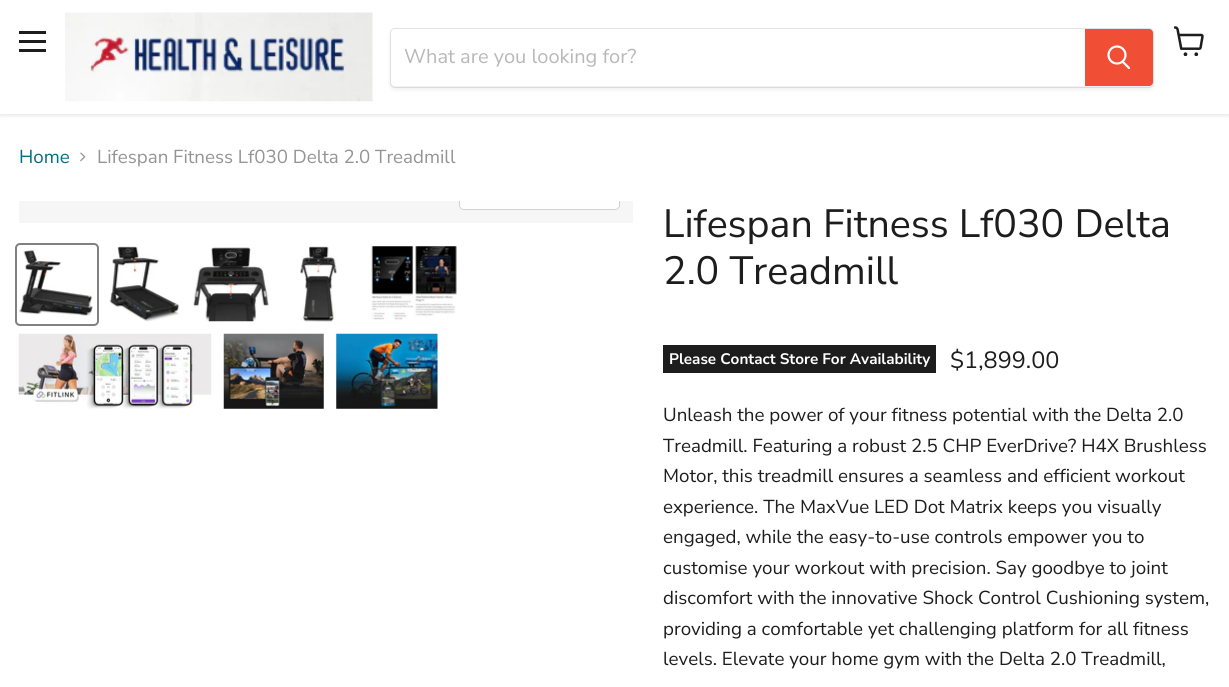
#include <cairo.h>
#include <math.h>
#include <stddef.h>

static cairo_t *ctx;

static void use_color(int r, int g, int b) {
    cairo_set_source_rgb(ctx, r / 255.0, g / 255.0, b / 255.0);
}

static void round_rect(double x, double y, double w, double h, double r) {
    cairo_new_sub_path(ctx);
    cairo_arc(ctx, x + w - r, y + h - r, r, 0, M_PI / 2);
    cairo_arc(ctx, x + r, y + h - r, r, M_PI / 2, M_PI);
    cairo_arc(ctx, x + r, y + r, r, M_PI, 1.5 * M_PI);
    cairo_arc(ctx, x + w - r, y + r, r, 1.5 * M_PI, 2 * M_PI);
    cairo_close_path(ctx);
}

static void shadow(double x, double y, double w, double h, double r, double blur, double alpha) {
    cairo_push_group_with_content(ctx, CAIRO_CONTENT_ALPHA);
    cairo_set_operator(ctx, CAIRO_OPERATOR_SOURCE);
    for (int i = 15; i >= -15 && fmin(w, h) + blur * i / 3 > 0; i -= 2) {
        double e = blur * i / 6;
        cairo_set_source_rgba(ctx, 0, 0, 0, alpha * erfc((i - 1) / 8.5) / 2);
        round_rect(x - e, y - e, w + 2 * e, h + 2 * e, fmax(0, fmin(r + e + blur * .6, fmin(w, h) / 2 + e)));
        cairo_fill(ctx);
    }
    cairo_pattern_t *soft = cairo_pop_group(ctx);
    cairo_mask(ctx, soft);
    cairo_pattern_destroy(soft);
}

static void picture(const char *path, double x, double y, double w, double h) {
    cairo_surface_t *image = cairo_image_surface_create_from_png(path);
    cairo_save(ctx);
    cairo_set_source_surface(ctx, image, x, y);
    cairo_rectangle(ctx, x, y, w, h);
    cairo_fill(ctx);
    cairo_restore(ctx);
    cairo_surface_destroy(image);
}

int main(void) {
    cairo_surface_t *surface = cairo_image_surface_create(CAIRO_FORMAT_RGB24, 1229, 687);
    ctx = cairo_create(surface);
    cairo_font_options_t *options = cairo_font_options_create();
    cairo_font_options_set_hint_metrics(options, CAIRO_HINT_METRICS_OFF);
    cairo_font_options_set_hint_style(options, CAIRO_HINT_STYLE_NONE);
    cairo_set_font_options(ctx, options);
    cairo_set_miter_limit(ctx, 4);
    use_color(255, 255, 255);
    cairo_paint(ctx);
    use_color(128, 128, 128);
    shadow(0, 1, 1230, 114, 0, 2.5, 0.25);
    use_color(255, 255, 255);
    cairo_rectangle(ctx, 0, 0, 1229, 114);
    cairo_fill(ctx);
    use_color(29, 29, 29);
    cairo_rectangle(ctx, 19, 31, 27, 3);
    cairo_fill(ctx);
    cairo_rectangle(ctx, 19, 40, 27, 3);
    cairo_fill(ctx);
    cairo_rectangle(ctx, 19, 49, 27, 3);
    cairo_fill(ctx);
    picture("img1.png", 1174, 26, 30, 30);
    picture("img2.png", 65, 12, 308, 90);
    use_color(128, 128, 128);
    shadow(390, 30, 764, 60, 5, 2, 0.11);
    round_rect(390.5, 28.5, 763, 59, 4.5);
    cairo_set_source_rgba(ctx, 0.502, 0.502, 0.502, 0.2);
    cairo_set_line_width(ctx, 1);
    cairo_stroke(ctx);
    use_color(255, 255, 255);
    cairo_new_path(ctx);
    cairo_move_to(ctx, 395, 29);
    cairo_line_to(ctx, 1085, 29);
    cairo_line_to(ctx, 1085, 86);
    cairo_line_to(ctx, 395, 86);
    cairo_curve_to(ctx, 393, 86, 391, 84, 391, 82);
    cairo_line_to(ctx, 391, 33);
    cairo_curve_to(ctx, 391, 31, 393, 29, 395, 29);
    cairo_close_path(ctx);
    cairo_fill(ctx);
    cairo_select_font_face(ctx, "Nunito Sans", CAIRO_FONT_SLANT_NORMAL, CAIRO_FONT_WEIGHT_NORMAL);
    cairo_set_font_size(ctx, 20);
    use_color(184, 184, 184);
    cairo_move_to(ctx, 404, 63);
    cairo_show_text(ctx, "What are you looking for?");
    use_color(240, 79, 54);
    cairo_new_path(ctx);
    cairo_move_to(ctx, 1085.5, 29.5);
    cairo_line_to(ctx, 1149, 29.5);
    cairo_curve_to(ctx, 1151, 29.5, 1152.5, 31, 1152.5, 33);
    cairo_line_to(ctx, 1152.5, 82);
    cairo_curve_to(ctx, 1152.5, 84, 1151, 85.5, 1149, 85.5);
    cairo_line_to(ctx, 1085.5, 85.5);
    cairo_close_path(ctx);
    cairo_fill_preserve(ctx);
    cairo_stroke(ctx);
    cairo_new_path(ctx);
    cairo_move_to(ctx, 1129, 68);
    cairo_line_to(ctx, 1123, 62);
    use_color(255, 255, 255);
    cairo_set_line_width(ctx, 2.2);
    cairo_set_line_cap(ctx, CAIRO_LINE_CAP_ROUND);
    cairo_stroke(ctx);
    cairo_arc(ctx, 1117, 55, 8.5, 0, 2 * M_PI);
    cairo_set_line_cap(ctx, CAIRO_LINE_CAP_BUTT);
    cairo_stroke(ctx);
    cairo_set_font_size(ctx, 18.75);
    use_color(4, 110, 130);
    cairo_move_to(ctx, 19, 163);
    cairo_show_text(ctx, "Home");
    picture("img3.png", 80, 152, 6, 10);
    use_color(148, 148, 148);
    cairo_move_to(ctx, 97, 163);
    cairo_show_text(ctx, "Lifespan Fitness Lf030 Delta 2.0 Treadmill");
    use_color(246, 246, 246);
    cairo_rectangle(ctx, 19, 201, 614, 22);
    cairo_fill(ctx);
    cairo_save(ctx);
    cairo_rectangle(ctx, 19, 201, 614, 22);
    cairo_clip(ctx);
    round_rect(459.5, 174.5, 160, 35, 4.5);
    use_color(209, 209, 209);
    cairo_set_line_width(ctx, 1);
    cairo_stroke(ctx);
    cairo_restore(ctx);
    cairo_set_source_rgba(ctx, 1, 1, 1, 0.9);
    cairo_new_path(ctx);
    cairo_move_to(ctx, 460, 201);
    cairo_line_to(ctx, 619, 201);
    cairo_line_to(ctx, 619, 205);
    cairo_curve_to(ctx, 619, 207, 617, 209, 615, 209);
    cairo_line_to(ctx, 464, 209);
    cairo_curve_to(ctx, 462, 209, 460, 207, 460, 205);
    cairo_close_path(ctx);
    cairo_fill(ctx);
    round_rect(16, 244, 82, 81, 4);
    use_color(129, 129, 129);
    cairo_set_line_width(ctx, 2);
    cairo_stroke(ctx);
    picture("img4.png", 18, 250, 75, 66);
    picture("img5.png", 109, 246, 71, 76);
    picture("img6.png", 193, 247, 76, 75);
    picture("img7.png", 300, 246, 37, 76);
    picture("img8.png", 370, 246, 87, 74);
    picture("img9.png", 18, 333, 194, 76);
    picture("img10.png", 223, 333, 101, 76);
    picture("img11.png", 336, 333, 102, 76);
    cairo_set_font_size(ctx, 39.4);
    use_color(29, 29, 29);
    cairo_move_to(ctx, 663, 237);
    cairo_show_text(ctx, "Lifespan Fitness Lf030 Delta");
    cairo_move_to(ctx, 663, 284);
    cairo_show_text(ctx, "2.0 Treadmill");
    cairo_rectangle(ctx, 663, 345, 273, 28);
    cairo_fill(ctx);
    cairo_select_font_face(ctx, "Nunito Sans", CAIRO_FONT_SLANT_NORMAL, CAIRO_FONT_WEIGHT_BOLD);
    cairo_set_font_size(ctx, 15.25);
    use_color(255, 255, 255);
    cairo_move_to(ctx, 669, 364);
    cairo_show_text(ctx, "Please Contact Store For Availability");
    cairo_select_font_face(ctx, "Nunito Sans", CAIRO_FONT_SLANT_NORMAL, CAIRO_FONT_WEIGHT_NORMAL);
    cairo_set_font_size(ctx, 23.5);
    use_color(29, 29, 29);
    cairo_move_to(ctx, 950, 368);
    cairo_show_text(ctx, "$1,899.00");
    cairo_set_font_size(ctx, 18.75);
    cairo_move_to(ctx, 663, 421);
    cairo_show_text(ctx, "Unleash the power of your fitness potential with the Delta 2.0");
    cairo_move_to(ctx, 663, 452);
    cairo_show_text(ctx, "Treadmill. Featuring a robust 2.5 CHP EverDrive? H4X Brushless");
    cairo_move_to(ctx, 663, 482);
    cairo_show_text(ctx, "Motor, this treadmill ensures a seamless and efficient workout");
    cairo_move_to(ctx, 663, 513);
    cairo_show_text(ctx, "experience. The MaxVue LED Dot Matrix keeps you visually");
    cairo_move_to(ctx, 663, 543);
    cairo_show_text(ctx, "engaged, while the easy-to-use controls empower you to");
    cairo_move_to(ctx, 663, 574);
    cairo_show_text(ctx, "customise your workout with precision. Say goodbye to joint");
    cairo_move_to(ctx, 663, 604);
    cairo_show_text(ctx, "discomfort with the innovative Shock Control Cushioning system,");
    cairo_move_to(ctx, 663, 635);
    cairo_show_text(ctx, "providing a comfortable yet challenging platform for all fitness");
    cairo_move_to(ctx, 663, 665);
    cairo_show_text(ctx, "levels. Elevate your home gym with the Delta 2.0 Treadmill,");
    cairo_surface_write_to_png(surface, "result.png");
    cairo_font_options_destroy(options);
    cairo_destroy(ctx);
    cairo_surface_destroy(surface);
    return 0;
}
